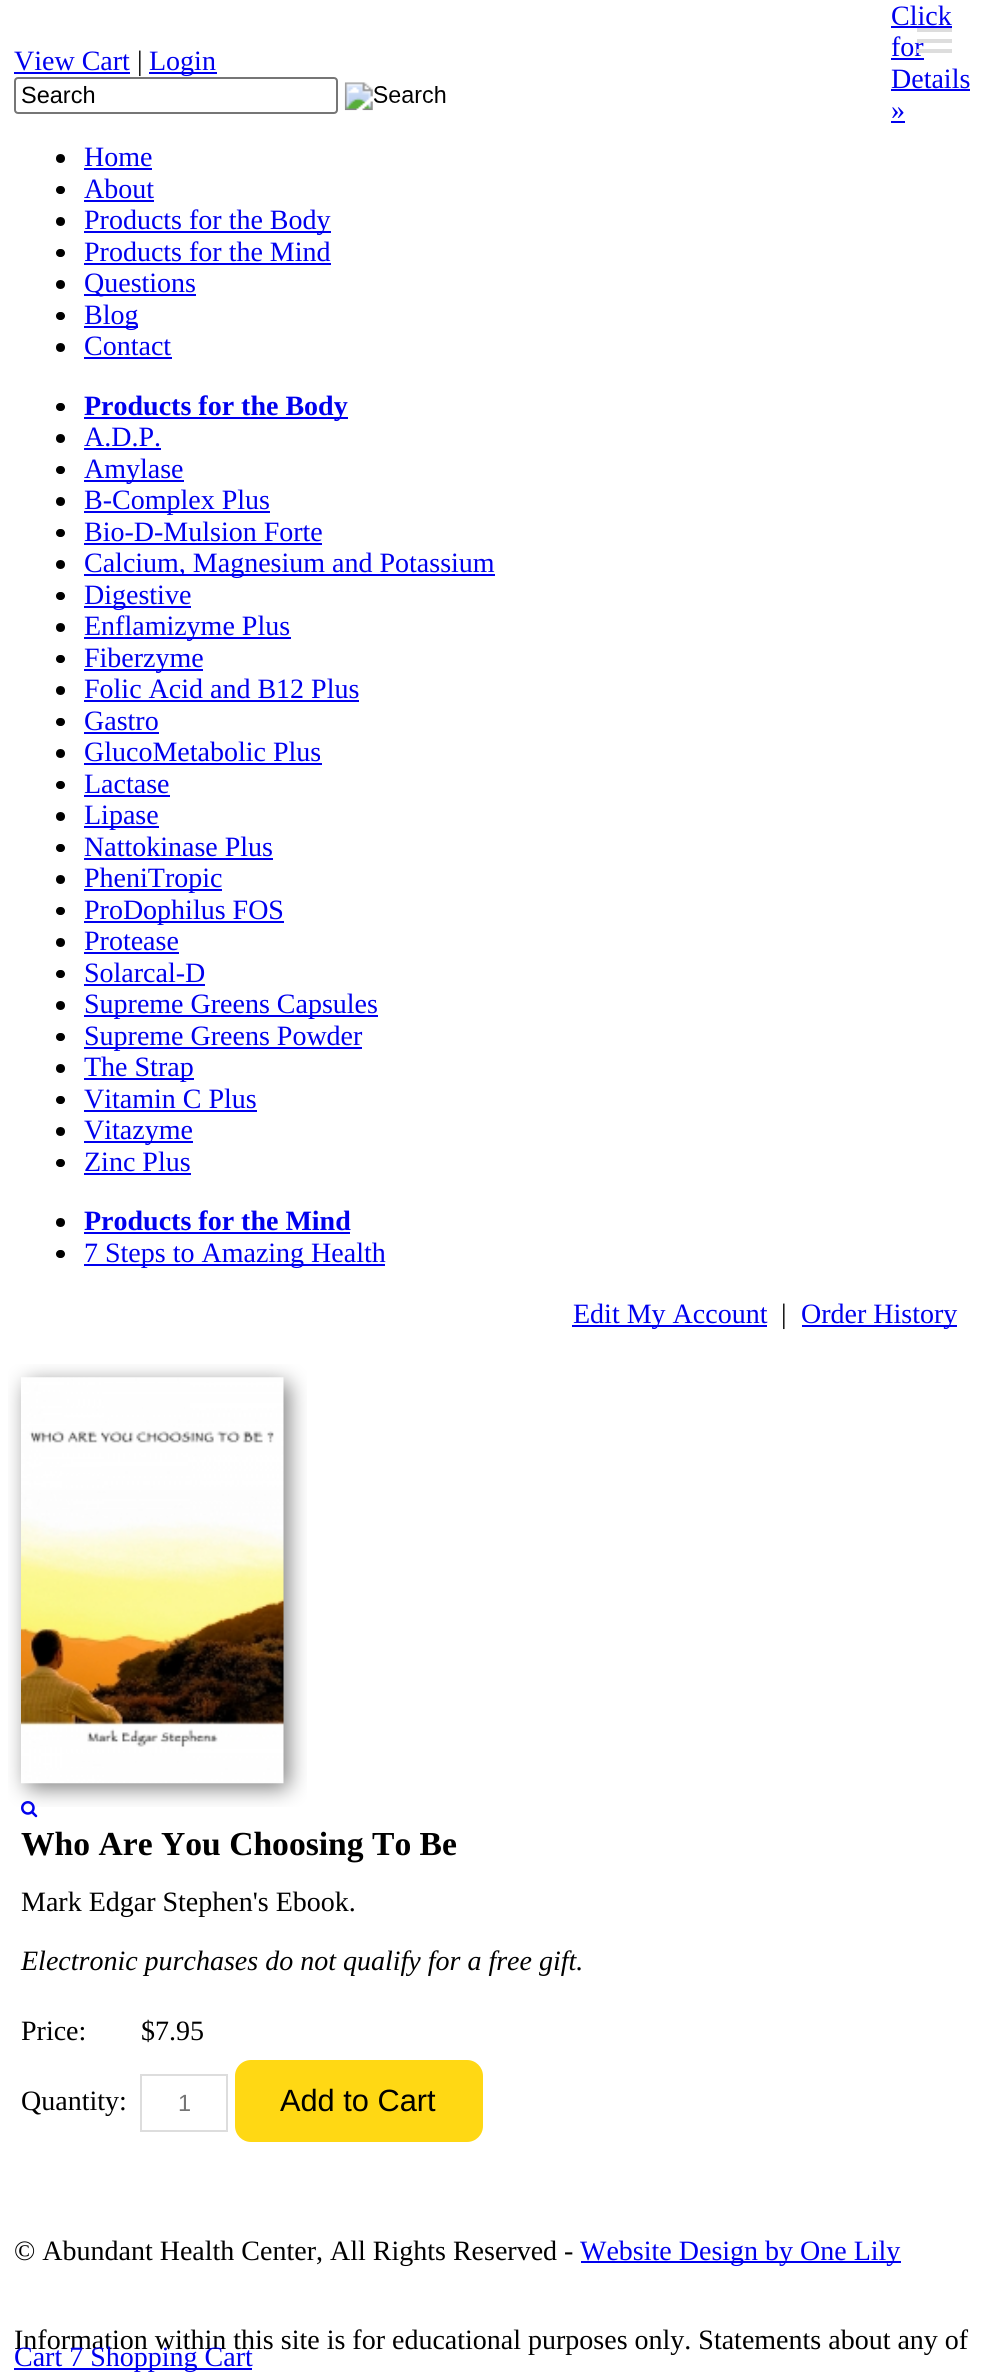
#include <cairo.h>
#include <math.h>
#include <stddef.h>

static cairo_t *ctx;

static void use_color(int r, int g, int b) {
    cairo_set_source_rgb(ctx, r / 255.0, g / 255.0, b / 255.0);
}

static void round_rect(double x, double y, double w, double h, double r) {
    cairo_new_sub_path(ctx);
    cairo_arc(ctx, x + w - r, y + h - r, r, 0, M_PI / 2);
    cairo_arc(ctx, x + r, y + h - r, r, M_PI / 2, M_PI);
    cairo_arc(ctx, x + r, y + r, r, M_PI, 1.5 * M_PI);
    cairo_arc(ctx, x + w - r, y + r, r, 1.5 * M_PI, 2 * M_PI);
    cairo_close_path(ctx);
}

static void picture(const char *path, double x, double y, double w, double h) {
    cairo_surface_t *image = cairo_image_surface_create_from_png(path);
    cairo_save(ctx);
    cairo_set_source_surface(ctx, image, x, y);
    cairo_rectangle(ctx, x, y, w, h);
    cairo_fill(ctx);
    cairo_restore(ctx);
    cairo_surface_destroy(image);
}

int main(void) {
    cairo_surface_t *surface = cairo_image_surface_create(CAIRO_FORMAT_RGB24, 987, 2373);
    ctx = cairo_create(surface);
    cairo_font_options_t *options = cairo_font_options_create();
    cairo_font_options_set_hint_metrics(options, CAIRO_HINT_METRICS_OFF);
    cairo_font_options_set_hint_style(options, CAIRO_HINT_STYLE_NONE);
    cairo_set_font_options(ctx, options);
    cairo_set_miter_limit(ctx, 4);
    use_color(255, 255, 255);
    cairo_paint(ctx);
    cairo_select_font_face(ctx, "Liberation Serif", CAIRO_FONT_SLANT_NORMAL, CAIRO_FONT_WEIGHT_NORMAL);
    cairo_set_font_size(ctx, 28);
    use_color(0, 0, 238);
    cairo_move_to(ctx, 14, 70);
    cairo_show_text(ctx, "View Cart");
    cairo_rectangle(ctx, 14, 72, 116, 2);
    cairo_fill(ctx);
    use_color(0, 0, 0);
    cairo_move_to(ctx, 137, 70);
    cairo_show_text(ctx, "|");
    use_color(0, 0, 238);
    cairo_rectangle(ctx, 149, 72, 68, 2);
    cairo_fill(ctx);
    cairo_move_to(ctx, 149, 70);
    cairo_show_text(ctx, "Login");
    round_rect(15, 78, 322, 35, 3);
    use_color(118, 118, 118);
    cairo_stroke(ctx);
    cairo_select_font_face(ctx, "Liberation Sans", CAIRO_FONT_SLANT_NORMAL, CAIRO_FONT_WEIGHT_NORMAL);
    cairo_set_font_size(ctx, 23.5);
    use_color(0, 0, 0);
    cairo_move_to(ctx, 21, 103);
    cairo_show_text(ctx, "Search");
    picture("img1.png", 344, 82, 102, 29);
    cairo_arc(ctx, 60.5, 158.5, 4.5, 0, 2 * M_PI);
    cairo_fill(ctx);
    cairo_select_font_face(ctx, "Liberation Serif", CAIRO_FONT_SLANT_NORMAL, CAIRO_FONT_WEIGHT_NORMAL);
    cairo_set_font_size(ctx, 28);
    use_color(0, 0, 238);
    cairo_move_to(ctx, 84, 166);
    cairo_show_text(ctx, "Home");
    cairo_rectangle(ctx, 84, 168, 68, 2);
    cairo_fill(ctx);
    use_color(0, 0, 0);
    round_rect(56, 186, 9, 8, 4);
    cairo_fill(ctx);
    use_color(0, 0, 238);
    cairo_move_to(ctx, 84, 198);
    cairo_show_text(ctx, "About");
    cairo_rectangle(ctx, 84, 200, 70, 2);
    cairo_fill(ctx);
    use_color(0, 0, 0);
    cairo_arc(ctx, 60.5, 221.5, 4.5, 0, 2 * M_PI);
    cairo_fill(ctx);
    use_color(0, 0, 238);
    cairo_rectangle(ctx, 84, 231, 247, 2);
    cairo_fill(ctx);
    cairo_move_to(ctx, 84, 229);
    cairo_show_text(ctx, "Products for the Body");
    use_color(0, 0, 0);
    round_rect(56, 249, 9, 8, 4);
    cairo_fill(ctx);
    use_color(0, 0, 238);
    cairo_move_to(ctx, 84, 261);
    cairo_show_text(ctx, "Products for the Mind");
    cairo_rectangle(ctx, 84, 263, 247, 2);
    cairo_fill(ctx);
    use_color(0, 0, 0);
    cairo_arc(ctx, 60.5, 284.5, 4.5, 0, 2 * M_PI);
    cairo_fill(ctx);
    use_color(0, 0, 238);
    cairo_rectangle(ctx, 84, 294, 112, 2);
    cairo_fill(ctx);
    cairo_move_to(ctx, 84, 292);
    cairo_show_text(ctx, "Questions");
    use_color(0, 0, 0);
    round_rect(56, 312, 9, 8, 4);
    cairo_fill(ctx);
    use_color(0, 0, 238);
    cairo_rectangle(ctx, 84, 326, 54, 2);
    cairo_fill(ctx);
    cairo_move_to(ctx, 84, 324);
    cairo_show_text(ctx, "Blog");
    use_color(0, 0, 0);
    cairo_new_path(ctx);
    cairo_arc(ctx, 60.5, 347.5, 4.5, 0, 2 * M_PI);
    cairo_fill(ctx);
    use_color(0, 0, 238);
    cairo_move_to(ctx, 84, 355);
    cairo_show_text(ctx, "Contact");
    cairo_rectangle(ctx, 84, 357, 88, 2);
    cairo_fill(ctx);
    cairo_move_to(ctx, 891, 25);
    cairo_show_text(ctx, "Click");
    cairo_rectangle(ctx, 891, 26, 61, 2);
    cairo_fill(ctx);
    use_color(221, 221, 221);
    cairo_rectangle(ctx, 917, 28, 35, 4);
    cairo_fill(ctx);
    use_color(0, 0, 238);
    cairo_move_to(ctx, 891, 56);
    cairo_show_text(ctx, "for");
    cairo_rectangle(ctx, 891, 58, 33, 2);
    cairo_fill(ctx);
    use_color(221, 221, 221);
    cairo_rectangle(ctx, 917, 39, 35, 4);
    cairo_fill(ctx);
    cairo_rectangle(ctx, 917, 49, 35, 4);
    cairo_fill(ctx);
    use_color(0, 0, 238);
    cairo_move_to(ctx, 891, 88);
    cairo_show_text(ctx, "Details");
    cairo_rectangle(ctx, 891, 89, 79, 2);
    cairo_fill(ctx);
    cairo_move_to(ctx, 891, 119);
    cairo_show_text(ctx, "»");
    cairo_rectangle(ctx, 891, 121, 14, 2);
    cairo_fill(ctx);
    use_color(0, 0, 0);
    round_rect(56, 403, 9, 8, 4);
    cairo_fill(ctx);
    use_color(0, 0, 238);
    cairo_rectangle(ctx, 84, 417, 264, 2);
    cairo_fill(ctx);
    cairo_select_font_face(ctx, "Liberation Serif", CAIRO_FONT_SLANT_NORMAL, CAIRO_FONT_WEIGHT_BOLD);
    cairo_move_to(ctx, 84, 415);
    cairo_show_text(ctx, "Products for the Body");
    use_color(0, 0, 0);
    cairo_new_path(ctx);
    cairo_arc(ctx, 60.5, 438.5, 4.5, 0, 2 * M_PI);
    cairo_fill(ctx);
    cairo_select_font_face(ctx, "Liberation Serif", CAIRO_FONT_SLANT_NORMAL, CAIRO_FONT_WEIGHT_NORMAL);
    use_color(0, 0, 238);
    cairo_move_to(ctx, 84, 446);
    cairo_show_text(ctx, "A.D.P.");
    cairo_rectangle(ctx, 84, 448, 77, 2);
    cairo_fill(ctx);
    use_color(0, 0, 0);
    round_rect(56, 466, 9, 8, 4);
    cairo_fill(ctx);
    use_color(0, 0, 238);
    cairo_rectangle(ctx, 84, 480, 100, 2);
    cairo_fill(ctx);
    cairo_move_to(ctx, 84, 478);
    cairo_show_text(ctx, "Amylase");
    use_color(0, 0, 0);
    cairo_new_path(ctx);
    cairo_arc(ctx, 60.5, 501.5, 4.5, 0, 2 * M_PI);
    cairo_fill(ctx);
    use_color(0, 0, 238);
    cairo_rectangle(ctx, 84, 511, 186, 2);
    cairo_fill(ctx);
    cairo_move_to(ctx, 84, 509);
    cairo_show_text(ctx, "B-Complex Plus");
    use_color(0, 0, 0);
    round_rect(56, 529, 9, 8, 4);
    cairo_fill(ctx);
    use_color(0, 0, 238);
    cairo_move_to(ctx, 84, 541);
    cairo_show_text(ctx, "Bio-D-Mulsion Forte");
    cairo_rectangle(ctx, 84, 543, 238, 2);
    cairo_fill(ctx);
    use_color(0, 0, 0);
    cairo_arc(ctx, 60.5, 564.5, 4.5, 0, 2 * M_PI);
    cairo_fill(ctx);
    use_color(0, 0, 238);
    cairo_rectangle(ctx, 84, 574, 411, 2);
    cairo_fill(ctx);
    cairo_move_to(ctx, 84, 572);
    cairo_show_text(ctx, "Calcium, Magnesium and Potassium");
    use_color(0, 0, 0);
    round_rect(56, 592, 9, 8, 4);
    cairo_fill(ctx);
    use_color(0, 0, 238);
    cairo_rectangle(ctx, 84, 606, 107, 2);
    cairo_fill(ctx);
    cairo_move_to(ctx, 84, 604);
    cairo_show_text(ctx, "Digestive");
    use_color(0, 0, 0);
    cairo_new_path(ctx);
    cairo_arc(ctx, 60.5, 627.5, 4.5, 0, 2 * M_PI);
    cairo_fill(ctx);
    use_color(0, 0, 238);
    cairo_rectangle(ctx, 84, 637, 207, 2);
    cairo_fill(ctx);
    cairo_move_to(ctx, 84, 635);
    cairo_show_text(ctx, "Enflamizyme Plus");
    use_color(0, 0, 0);
    round_rect(56, 655, 9, 8, 4);
    cairo_fill(ctx);
    use_color(0, 0, 238);
    cairo_rectangle(ctx, 84, 669, 119, 2);
    cairo_fill(ctx);
    cairo_move_to(ctx, 84, 667);
    cairo_show_text(ctx, "Fiberzyme");
    use_color(0, 0, 0);
    cairo_new_path(ctx);
    cairo_arc(ctx, 60.5, 690.5, 4.5, 0, 2 * M_PI);
    cairo_fill(ctx);
    use_color(0, 0, 238);
    cairo_move_to(ctx, 84, 698);
    cairo_show_text(ctx, "Folic Acid and B12 Plus");
    cairo_rectangle(ctx, 84, 700, 275, 2);
    cairo_fill(ctx);
    use_color(0, 0, 0);
    round_rect(56, 718, 9, 8, 4);
    cairo_fill(ctx);
    use_color(0, 0, 238);
    cairo_move_to(ctx, 84, 730);
    cairo_show_text(ctx, "Gastro");
    cairo_rectangle(ctx, 84, 732, 75, 2);
    cairo_fill(ctx);
    use_color(0, 0, 0);
    cairo_arc(ctx, 60.5, 753.5, 4.5, 0, 2 * M_PI);
    cairo_fill(ctx);
    use_color(0, 0, 238);
    cairo_move_to(ctx, 84, 761);
    cairo_show_text(ctx, "GlucoMetabolic Plus");
    cairo_rectangle(ctx, 84, 763, 238, 2);
    cairo_fill(ctx);
    use_color(0, 0, 0);
    round_rect(56, 781, 9, 8, 4);
    cairo_fill(ctx);
    use_color(0, 0, 238);
    cairo_move_to(ctx, 84, 793);
    cairo_show_text(ctx, "Lactase");
    cairo_rectangle(ctx, 84, 795, 86, 2);
    cairo_fill(ctx);
    use_color(0, 0, 0);
    cairo_arc(ctx, 60.5, 816.5, 4.5, 0, 2 * M_PI);
    cairo_fill(ctx);
    use_color(0, 0, 238);
    cairo_rectangle(ctx, 84, 826, 75, 2);
    cairo_fill(ctx);
    cairo_move_to(ctx, 84, 824);
    cairo_show_text(ctx, "Lipase");
    use_color(0, 0, 0);
    round_rect(56, 844, 9, 8, 4);
    cairo_fill(ctx);
    use_color(0, 0, 238);
    cairo_move_to(ctx, 84, 856);
    cairo_show_text(ctx, "Nattokinase Plus");
    cairo_rectangle(ctx, 84, 858, 189, 2);
    cairo_fill(ctx);
    use_color(0, 0, 0);
    cairo_arc(ctx, 60.5, 879.5, 4.5, 0, 2 * M_PI);
    cairo_fill(ctx);
    use_color(0, 0, 238);
    cairo_rectangle(ctx, 84, 889, 138, 2);
    cairo_fill(ctx);
    cairo_move_to(ctx, 84, 887);
    cairo_show_text(ctx, "PheniTropic");
    use_color(0, 0, 0);
    round_rect(56, 907, 9, 8, 4);
    cairo_fill(ctx);
    use_color(0, 0, 238);
    cairo_rectangle(ctx, 84, 921, 200, 2);
    cairo_fill(ctx);
    cairo_move_to(ctx, 84, 919);
    cairo_show_text(ctx, "ProDophilus FOS");
    use_color(0, 0, 0);
    cairo_new_path(ctx);
    cairo_arc(ctx, 60.5, 942.5, 4.5, 0, 2 * M_PI);
    cairo_fill(ctx);
    use_color(0, 0, 238);
    cairo_move_to(ctx, 84, 950);
    cairo_show_text(ctx, "Protease");
    cairo_rectangle(ctx, 84, 952, 95, 2);
    cairo_fill(ctx);
    use_color(0, 0, 0);
    round_rect(56, 970, 9, 8, 4);
    cairo_fill(ctx);
    use_color(0, 0, 238);
    cairo_move_to(ctx, 84, 982);
    cairo_show_text(ctx, "Solarcal-D");
    cairo_rectangle(ctx, 84, 984, 121, 2);
    cairo_fill(ctx);
    use_color(0, 0, 0);
    cairo_arc(ctx, 60.5, 1005.5, 4.5, 0, 2 * M_PI);
    cairo_fill(ctx);
    use_color(0, 0, 238);
    cairo_rectangle(ctx, 84, 1015, 294, 2);
    cairo_fill(ctx);
    cairo_move_to(ctx, 84, 1013);
    cairo_show_text(ctx, "Supreme Greens Capsules");
    use_color(0, 0, 0);
    round_rect(56, 1033, 9, 8, 4);
    cairo_fill(ctx);
    use_color(0, 0, 238);
    cairo_rectangle(ctx, 84, 1047, 278, 2);
    cairo_fill(ctx);
    cairo_move_to(ctx, 84, 1045);
    cairo_show_text(ctx, "Supreme Greens Powder");
    use_color(0, 0, 0);
    cairo_new_path(ctx);
    cairo_arc(ctx, 60.5, 1068.5, 4.5, 0, 2 * M_PI);
    cairo_fill(ctx);
    use_color(0, 0, 238);
    cairo_rectangle(ctx, 84, 1078, 110, 2);
    cairo_fill(ctx);
    cairo_move_to(ctx, 84, 1076);
    cairo_show_text(ctx, "The Strap");
    use_color(0, 0, 0);
    round_rect(56, 1096, 9, 8, 4);
    cairo_fill(ctx);
    use_color(0, 0, 238);
    cairo_move_to(ctx, 84, 1108);
    cairo_show_text(ctx, "Vitamin C Plus");
    cairo_rectangle(ctx, 84, 1110, 173, 2);
    cairo_fill(ctx);
    use_color(0, 0, 0);
    cairo_arc(ctx, 60.5, 1131.5, 4.5, 0, 2 * M_PI);
    cairo_fill(ctx);
    use_color(0, 0, 238);
    cairo_rectangle(ctx, 84, 1141, 109, 2);
    cairo_fill(ctx);
    cairo_move_to(ctx, 84, 1139);
    cairo_show_text(ctx, "Vitazyme");
    use_color(0, 0, 0);
    round_rect(56, 1159, 9, 8, 4);
    cairo_fill(ctx);
    use_color(0, 0, 238);
    cairo_move_to(ctx, 84, 1171);
    cairo_show_text(ctx, "Zinc Plus");
    cairo_rectangle(ctx, 84, 1173, 107, 2);
    cairo_fill(ctx);
    use_color(0, 0, 0);
    cairo_arc(ctx, 60.5, 1222.5, 4.5, 0, 2 * M_PI);
    cairo_fill(ctx);
    cairo_select_font_face(ctx, "Liberation Serif", CAIRO_FONT_SLANT_NORMAL, CAIRO_FONT_WEIGHT_BOLD);
    use_color(0, 0, 238);
    cairo_move_to(ctx, 84, 1230);
    cairo_show_text(ctx, "Products for the Mind");
    cairo_rectangle(ctx, 84, 1232, 266, 2);
    cairo_fill(ctx);
    use_color(0, 0, 0);
    round_rect(56, 1250, 9, 8, 4);
    cairo_fill(ctx);
    use_color(0, 0, 238);
    cairo_rectangle(ctx, 84, 1264, 301, 2);
    cairo_fill(ctx);
    cairo_select_font_face(ctx, "Liberation Serif", CAIRO_FONT_SLANT_NORMAL, CAIRO_FONT_WEIGHT_NORMAL);
    cairo_move_to(ctx, 84, 1262);
    cairo_show_text(ctx, "7 Steps to Amazing Health");
    cairo_rectangle(ctx, 572, 1325, 195, 2);
    cairo_fill(ctx);
    cairo_move_to(ctx, 573, 1323);
    cairo_show_text(ctx, "Edit My Account");
    use_color(0, 0, 0);
    cairo_move_to(ctx, 781, 1323);
    cairo_show_text(ctx, "|");
    use_color(0, 0, 238);
    cairo_rectangle(ctx, 802, 1325, 155, 2);
    cairo_fill(ctx);
    cairo_move_to(ctx, 801, 1323);
    cairo_show_text(ctx, "Order History");
    picture("img3.png", 21, 1801, 17, 17);
    picture("img2.png", 8, 1364, 299, 443);
    cairo_select_font_face(ctx, "Liberation Serif", CAIRO_FONT_SLANT_NORMAL, CAIRO_FONT_WEIGHT_BOLD);
    cairo_set_font_size(ctx, 33.6);
    use_color(0, 0, 0);
    cairo_move_to(ctx, 21, 1855);
    cairo_show_text(ctx, "Who Are You Choosing To Be");
    cairo_select_font_face(ctx, "Liberation Serif", CAIRO_FONT_SLANT_NORMAL, CAIRO_FONT_WEIGHT_NORMAL);
    cairo_set_font_size(ctx, 28);
    cairo_move_to(ctx, 21, 1911);
    cairo_show_text(ctx, "Mark Edgar Stephen's Ebook.");
    cairo_select_font_face(ctx, "Liberation Serif", CAIRO_FONT_SLANT_ITALIC, CAIRO_FONT_WEIGHT_NORMAL);
    cairo_move_to(ctx, 21, 1970);
    cairo_show_text(ctx, "Electronic purchases do not qualify for a free gift.");
    cairo_select_font_face(ctx, "Liberation Serif", CAIRO_FONT_SLANT_NORMAL, CAIRO_FONT_WEIGHT_NORMAL);
    cairo_move_to(ctx, 21, 2040);
    cairo_show_text(ctx, "Price:");
    cairo_move_to(ctx, 141, 2040);
    cairo_show_text(ctx, "$7.95");
    cairo_move_to(ctx, 21, 2110);
    cairo_show_text(ctx, "Quantity:");
    cairo_rectangle(ctx, 141, 2075, 86, 56);
    use_color(221, 221, 221);
    cairo_stroke(ctx);
    cairo_select_font_face(ctx, "Liberation Sans", CAIRO_FONT_SLANT_NORMAL, CAIRO_FONT_WEIGHT_NORMAL);
    cairo_set_font_size(ctx, 23.5);
    use_color(117, 117, 117);
    cairo_move_to(ctx, 178, 2111);
    cairo_show_text(ctx, "1");
    use_color(255, 216, 20);
    round_rect(235, 2060, 248, 82, 16);
    cairo_fill(ctx);
    cairo_set_font_size(ctx, 30.75);
    use_color(0, 0, 0);
    cairo_move_to(ctx, 280, 2111);
    cairo_show_text(ctx, "Add to Cart");
    cairo_select_font_face(ctx, "Liberation Serif", CAIRO_FONT_SLANT_NORMAL, CAIRO_FONT_WEIGHT_NORMAL);
    cairo_set_font_size(ctx, 28);
    cairo_move_to(ctx, 14, 2260);
    cairo_show_text(ctx, "© Abundant Health Center, All Rights Reserved -");
    use_color(0, 0, 238);
    cairo_rectangle(ctx, 581, 2261, 320, 2);
    cairo_fill(ctx);
    cairo_move_to(ctx, 580, 2260);
    cairo_show_text(ctx, "Website Design by One Lily");
    use_color(0, 0, 0);
    cairo_move_to(ctx, 14, 2349);
    cairo_show_text(ctx, "Information within this site is for educational purposes only. Statements about any of");
    use_color(0, 0, 238);
    cairo_rectangle(ctx, 14, 2368, 238, 2);
    cairo_fill(ctx);
    cairo_move_to(ctx, 14, 2366);
    cairo_show_text(ctx, "Cart 7 Shopping Cart");
    cairo_surface_write_to_png(surface, "result.png");
    cairo_font_options_destroy(options);
    cairo_destroy(ctx);
    cairo_surface_destroy(surface);
    return 0;
}
